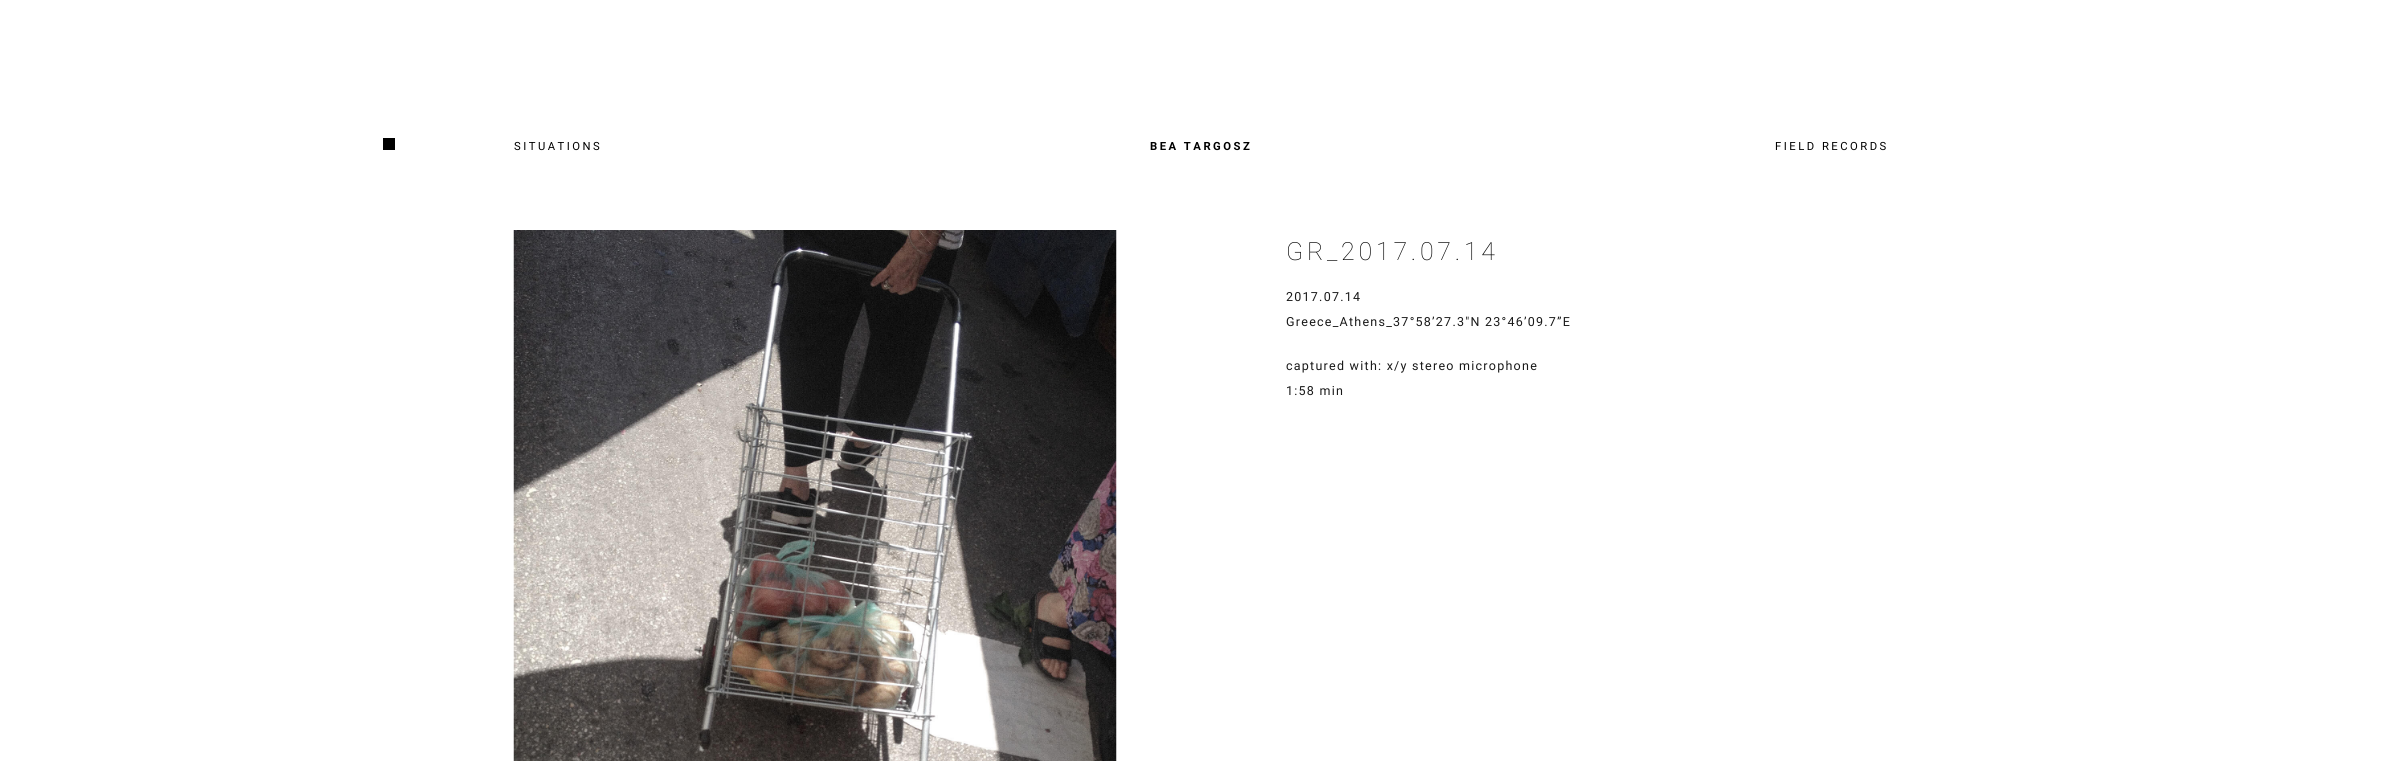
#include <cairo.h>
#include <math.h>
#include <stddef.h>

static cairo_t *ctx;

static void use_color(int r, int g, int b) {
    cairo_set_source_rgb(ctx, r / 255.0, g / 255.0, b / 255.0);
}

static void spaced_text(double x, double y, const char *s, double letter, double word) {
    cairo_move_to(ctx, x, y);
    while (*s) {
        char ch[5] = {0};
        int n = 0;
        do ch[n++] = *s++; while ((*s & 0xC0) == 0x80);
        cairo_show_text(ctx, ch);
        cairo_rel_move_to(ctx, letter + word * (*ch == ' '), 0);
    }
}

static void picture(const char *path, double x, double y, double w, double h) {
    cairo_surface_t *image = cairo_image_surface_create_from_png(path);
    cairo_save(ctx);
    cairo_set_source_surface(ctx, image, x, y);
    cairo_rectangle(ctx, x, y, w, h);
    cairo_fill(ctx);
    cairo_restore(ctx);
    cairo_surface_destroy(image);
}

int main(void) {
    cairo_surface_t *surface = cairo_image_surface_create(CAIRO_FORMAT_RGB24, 2402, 761);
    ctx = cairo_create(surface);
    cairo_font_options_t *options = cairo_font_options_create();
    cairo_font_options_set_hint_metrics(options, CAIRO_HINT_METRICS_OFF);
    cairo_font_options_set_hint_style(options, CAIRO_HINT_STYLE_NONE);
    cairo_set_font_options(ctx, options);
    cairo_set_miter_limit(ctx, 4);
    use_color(255, 255, 255);
    cairo_paint(ctx);
    use_color(0, 0, 0);
    cairo_rectangle(ctx, 383, 138, 12, 12);
    cairo_fill(ctx);
    cairo_select_font_face(ctx, "Roboto", CAIRO_FONT_SLANT_NORMAL, CAIRO_FONT_WEIGHT_NORMAL);
    cairo_set_font_size(ctx, 11.25);
    spaced_text(514, 150, "SITUATIONS", 2.5, 0);
    cairo_select_font_face(ctx, "Roboto", CAIRO_FONT_SLANT_NORMAL, CAIRO_FONT_WEIGHT_BOLD);
    spaced_text(1150, 150, "BEA TARGOSZ", 2.5, 0);
    cairo_select_font_face(ctx, "Roboto", CAIRO_FONT_SLANT_NORMAL, CAIRO_FONT_WEIGHT_NORMAL);
    spaced_text(1775, 150, "FIELD RECORDS", 2.5, 0);
    picture("img1.png", 513, 230, 604, 531);
    cairo_select_font_face(ctx, "Roboto Thin", CAIRO_FONT_SLANT_NORMAL, CAIRO_FONT_WEIGHT_NORMAL);
    cairo_set_font_size(ctx, 25);
    spaced_text(1286, 260, "GR_2017.07.14", 3.75, 0);
    cairo_select_font_face(ctx, "Roboto", CAIRO_FONT_SLANT_NORMAL, CAIRO_FONT_WEIGHT_NORMAL);
    cairo_set_font_size(ctx, 12.5);
    use_color(26, 26, 26);
    spaced_text(1286, 301, "2017.07.14", 1.25, 0);
    spaced_text(1286, 326, "Greece_Athens_37°58’27.3\"N 23°46’09.7”E", 1.25, 0);
    spaced_text(1286, 370, "captured with: x/y stereo microphone", 1.25, 0);
    spaced_text(1286, 395, "1:58 min", 1.25, 0);
    cairo_surface_write_to_png(surface, "result.png");
    cairo_font_options_destroy(options);
    cairo_destroy(ctx);
    cairo_surface_destroy(surface);
    return 0;
}
